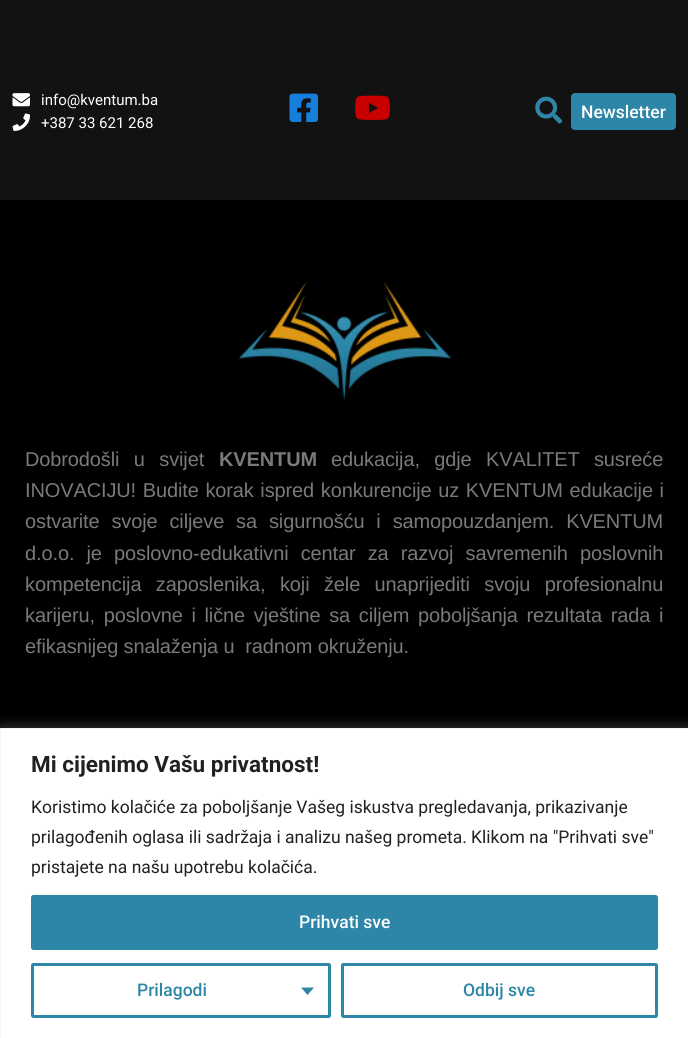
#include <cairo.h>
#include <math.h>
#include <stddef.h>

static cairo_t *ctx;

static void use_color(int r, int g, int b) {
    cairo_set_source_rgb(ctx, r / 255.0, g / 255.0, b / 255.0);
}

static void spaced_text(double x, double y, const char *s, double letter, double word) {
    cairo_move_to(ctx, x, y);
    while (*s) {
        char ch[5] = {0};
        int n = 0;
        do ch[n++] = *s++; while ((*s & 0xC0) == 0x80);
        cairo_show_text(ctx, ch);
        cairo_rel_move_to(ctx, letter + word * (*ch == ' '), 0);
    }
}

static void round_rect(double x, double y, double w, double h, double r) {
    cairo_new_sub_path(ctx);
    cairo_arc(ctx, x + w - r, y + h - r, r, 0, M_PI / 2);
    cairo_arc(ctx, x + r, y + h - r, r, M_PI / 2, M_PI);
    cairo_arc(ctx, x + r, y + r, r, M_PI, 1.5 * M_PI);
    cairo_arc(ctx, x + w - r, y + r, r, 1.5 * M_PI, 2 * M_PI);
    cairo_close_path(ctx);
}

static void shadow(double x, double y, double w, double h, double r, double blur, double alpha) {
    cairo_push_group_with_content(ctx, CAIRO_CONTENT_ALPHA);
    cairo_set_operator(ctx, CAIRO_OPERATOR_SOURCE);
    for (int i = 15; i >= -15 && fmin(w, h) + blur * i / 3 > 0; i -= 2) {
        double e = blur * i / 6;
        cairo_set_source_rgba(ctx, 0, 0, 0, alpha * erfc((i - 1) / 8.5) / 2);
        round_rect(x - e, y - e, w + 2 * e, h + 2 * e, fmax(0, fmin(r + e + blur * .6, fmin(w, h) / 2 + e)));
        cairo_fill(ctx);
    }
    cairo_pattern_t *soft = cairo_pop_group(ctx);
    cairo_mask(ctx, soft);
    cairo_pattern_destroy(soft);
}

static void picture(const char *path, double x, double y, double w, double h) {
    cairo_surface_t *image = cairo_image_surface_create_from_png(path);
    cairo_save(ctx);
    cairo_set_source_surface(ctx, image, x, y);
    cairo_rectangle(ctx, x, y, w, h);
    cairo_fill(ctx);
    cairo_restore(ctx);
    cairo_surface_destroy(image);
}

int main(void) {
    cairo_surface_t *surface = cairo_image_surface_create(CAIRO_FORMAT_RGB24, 688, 1038);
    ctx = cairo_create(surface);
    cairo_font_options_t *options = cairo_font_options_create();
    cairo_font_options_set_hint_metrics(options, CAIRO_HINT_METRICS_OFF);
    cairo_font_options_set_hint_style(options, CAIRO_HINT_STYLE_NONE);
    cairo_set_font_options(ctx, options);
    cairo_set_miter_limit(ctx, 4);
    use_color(18, 18, 18);
    cairo_paint(ctx);
    picture("img1.png", 12, 93, 18, 14);
    cairo_select_font_face(ctx, "Roboto", CAIRO_FONT_SLANT_NORMAL, CAIRO_FONT_WEIGHT_NORMAL);
    cairo_set_font_size(ctx, 15);
    use_color(255, 255, 255);
    cairo_move_to(ctx, 41, 105);
    cairo_show_text(ctx, "info@kventum.ba");
    picture("img2.png", 12, 113, 18, 18);
    cairo_move_to(ctx, 41, 128);
    cairo_show_text(ctx, "+387 33 621 268");
    picture("img3.png", 289, 93, 29, 29);
    picture("img4.png", 355, 95, 35, 25);
    picture("img5.png", 535, 96, 28, 28);
    use_color(45, 134, 167);
    round_rect(571, 93, 105, 37, 4);
    cairo_fill(ctx);
    cairo_select_font_face(ctx, "Roboto Medium", CAIRO_FONT_SLANT_NORMAL, CAIRO_FONT_WEIGHT_NORMAL);
    cairo_set_font_size(ctx, 17.5);
    use_color(255, 255, 255);
    cairo_move_to(ctx, 581, 118);
    cairo_show_text(ctx, "Newsletter");
    use_color(0, 0, 0);
    cairo_rectangle(ctx, 0, 200, 688, 528);
    cairo_fill(ctx);
    picture("img6.png", 238, 281, 214, 119);
    cairo_select_font_face(ctx, "Liberation Sans", CAIRO_FONT_SLANT_NORMAL, CAIRO_FONT_WEIGHT_NORMAL);
    cairo_set_font_size(ctx, 20);
    use_color(122, 122, 122);
    spaced_text(25, 466, "Dobrodošli u svijet", -0.12, 9);
    cairo_select_font_face(ctx, "Liberation Sans", CAIRO_FONT_SLANT_NORMAL, CAIRO_FONT_WEIGHT_BOLD);
    spaced_text(219, 466, "KVENTUM", -0.12, 0);
    cairo_select_font_face(ctx, "Liberation Sans", CAIRO_FONT_SLANT_NORMAL, CAIRO_FONT_WEIGHT_NORMAL);
    spaced_text(331, 466, "edukacija, gdje KVALITET susreće", -0.12, 9);
    spaced_text(25, 497, "INOVACIJU! Budite korak ispred konkurencije uz KVENTUM edukacije i", -0.12, 1.25);
    spaced_text(25, 528, "ostvarite svoje ciljeve sa sigurnošću i samopouzdanjem. KVENTUM", -0.12, 6.5);
    spaced_text(25, 560, "d.o.o. je poslovno-edukativni centar za razvoj savremenih poslovnih", -0.12, 6.75);
    spaced_text(25, 591, "kompetencija zaposlenika, koji žele unaprijediti svoju profesionalnu", -0.12, 9);
    spaced_text(25, 622, "karijeru, poslovne i lične vještine sa ciljem poboljšanja rezultata rada i", -0.12, 3.25);
    spaced_text(25, 653, "efikasnijeg snalaženja u  radnom okruženju.", -0.12, 0);
    use_color(172, 171, 171);
    shadow(0, 726, 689, 312, 0, 6, 0.3);
    use_color(255, 255, 255);
    cairo_rectangle(ctx, 0.5, 728.5, 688, 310);
    cairo_fill_preserve(ctx);
    use_color(244, 244, 244);
    cairo_set_line_width(ctx, 1);
    cairo_stroke(ctx);
    cairo_select_font_face(ctx, "Roboto", CAIRO_FONT_SLANT_NORMAL, CAIRO_FONT_WEIGHT_BOLD);
    cairo_set_font_size(ctx, 22.5);
    use_color(33, 33, 33);
    cairo_move_to(ctx, 31, 772);
    cairo_show_text(ctx, "Mi cijenimo Vašu privatnost!");
    cairo_select_font_face(ctx, "Roboto", CAIRO_FONT_SLANT_NORMAL, CAIRO_FONT_WEIGHT_NORMAL);
    cairo_set_font_size(ctx, 17.5);
    cairo_move_to(ctx, 31, 813);
    cairo_show_text(ctx, "Koristimo kolačiće za poboljšanje Vašeg iskustva pregledavanja, prikazivanje");
    cairo_move_to(ctx, 31, 843);
    cairo_show_text(ctx, "prilagođenih oglasa ili sadržaja i analizu našeg prometa. Klikom na \"Prihvati sve\"");
    cairo_move_to(ctx, 31, 873);
    cairo_show_text(ctx, "pristajete na našu upotrebu kolačića.");
    use_color(45, 134, 167);
    round_rect(32.5, 896.5, 624, 52, 1);
    cairo_fill_preserve(ctx);
    cairo_set_line_width(ctx, 3);
    cairo_stroke(ctx);
    cairo_select_font_face(ctx, "Roboto Medium", CAIRO_FONT_SLANT_NORMAL, CAIRO_FONT_WEIGHT_NORMAL);
    use_color(255, 255, 255);
    cairo_move_to(ctx, 299, 928);
    cairo_show_text(ctx, "Prihvati sve");
    round_rect(32.5, 964.5, 297, 52, 1);
    use_color(45, 134, 167);
    cairo_stroke(ctx);
    cairo_move_to(ctx, 137, 996);
    cairo_show_text(ctx, "Prilagodi");
    cairo_new_path(ctx);
    cairo_move_to(ctx, 301, 987.5);
    cairo_line_to(ctx, 314, 987.5);
    cairo_line_to(ctx, 307.5, 995);
    cairo_close_path(ctx);
    cairo_fill(ctx);
    round_rect(342.5, 964.5, 314, 52, 1);
    cairo_stroke(ctx);
    cairo_move_to(ctx, 463, 996);
    cairo_show_text(ctx, "Odbij sve");
    cairo_surface_write_to_png(surface, "result.png");
    cairo_font_options_destroy(options);
    cairo_destroy(ctx);
    cairo_surface_destroy(surface);
    return 0;
}
